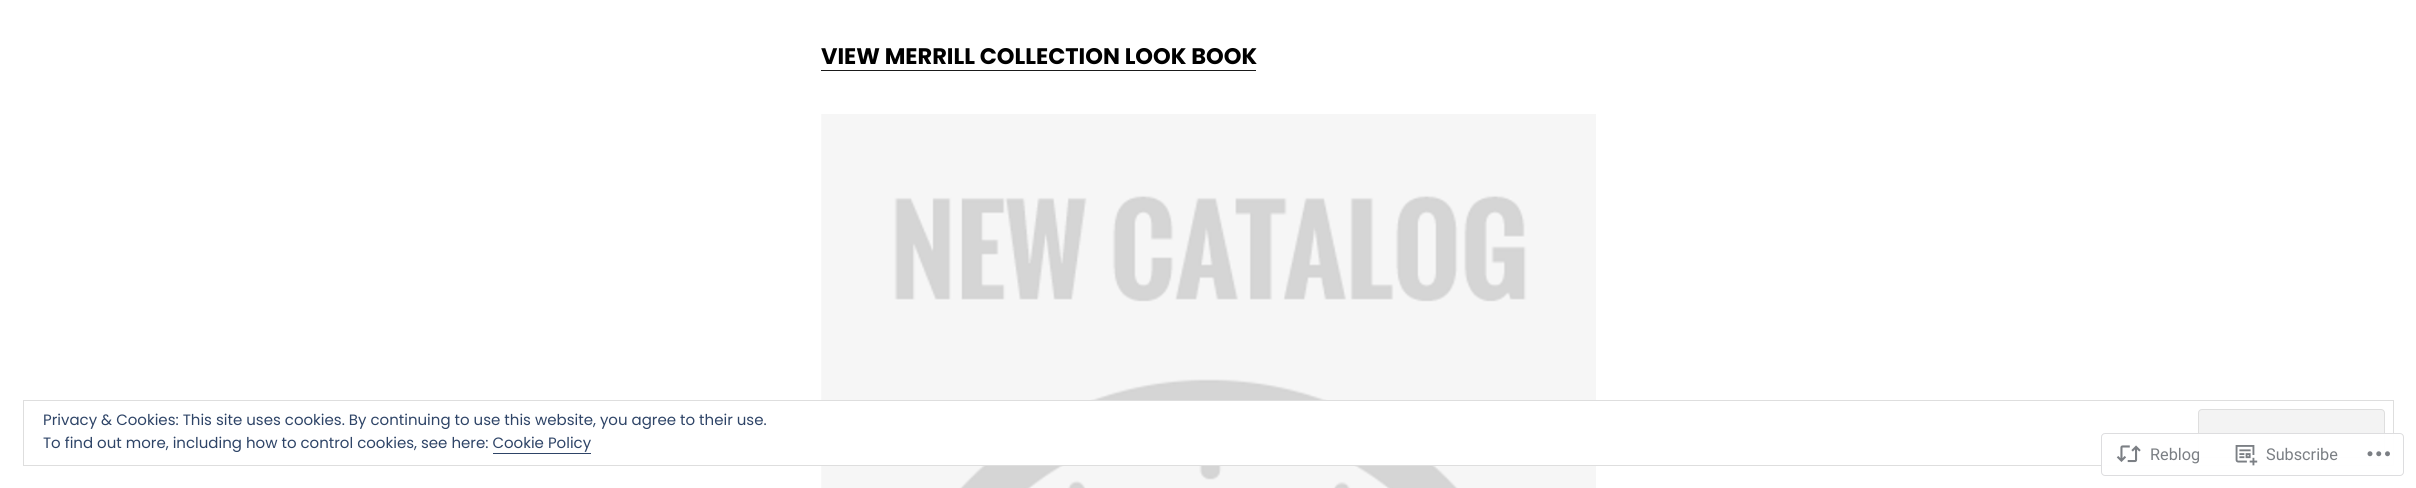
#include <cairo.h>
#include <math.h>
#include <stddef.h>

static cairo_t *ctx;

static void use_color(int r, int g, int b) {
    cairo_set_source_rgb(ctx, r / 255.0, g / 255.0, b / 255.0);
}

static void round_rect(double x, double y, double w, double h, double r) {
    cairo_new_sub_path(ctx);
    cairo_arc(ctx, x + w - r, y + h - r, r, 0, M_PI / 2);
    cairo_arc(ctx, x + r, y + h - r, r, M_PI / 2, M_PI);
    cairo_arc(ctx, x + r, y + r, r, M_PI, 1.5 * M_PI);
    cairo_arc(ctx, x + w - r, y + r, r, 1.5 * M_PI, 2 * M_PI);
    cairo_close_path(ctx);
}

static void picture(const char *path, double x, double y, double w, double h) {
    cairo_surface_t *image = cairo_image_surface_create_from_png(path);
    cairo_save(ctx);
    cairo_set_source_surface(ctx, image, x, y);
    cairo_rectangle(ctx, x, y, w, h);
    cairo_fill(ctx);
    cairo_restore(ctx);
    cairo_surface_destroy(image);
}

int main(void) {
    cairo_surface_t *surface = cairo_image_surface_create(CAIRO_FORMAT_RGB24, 2416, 488);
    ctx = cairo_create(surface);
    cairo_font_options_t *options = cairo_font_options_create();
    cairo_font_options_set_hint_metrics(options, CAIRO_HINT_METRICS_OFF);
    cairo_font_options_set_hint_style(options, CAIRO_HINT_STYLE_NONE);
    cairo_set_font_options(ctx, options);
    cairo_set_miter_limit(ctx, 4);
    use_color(255, 255, 255);
    cairo_paint(ctx);
    cairo_select_font_face(ctx, "Poppins", CAIRO_FONT_SLANT_NORMAL, CAIRO_FONT_WEIGHT_BOLD);
    cairo_set_font_size(ctx, 22.5);
    use_color(0, 0, 0);
    cairo_move_to(ctx, 821, 64);
    cairo_show_text(ctx, "VIEW MERRILL COLLECTION LOOK BOOK");
    use_color(26, 26, 26);
    cairo_rectangle(ctx, 821, 70, 435, 1);
    cairo_fill(ctx);
    picture("img1.png", 821, 114, 775, 374);
    use_color(255, 255, 255);
    cairo_rectangle(ctx, 821, 401, 775, 64);
    cairo_fill(ctx);
    cairo_rectangle(ctx, 23.5, 400.5, 2370, 65);
    use_color(222, 222, 222);
    cairo_set_line_width(ctx, 1);
    cairo_stroke(ctx);
    cairo_select_font_face(ctx, "Poppins", CAIRO_FONT_SLANT_NORMAL, CAIRO_FONT_WEIGHT_NORMAL);
    cairo_set_font_size(ctx, 15);
    use_color(46, 68, 103);
    cairo_move_to(ctx, 43, 425);
    cairo_show_text(ctx, "Privacy & Cookies: This site uses cookies. By continuing to use this website, you agree to their use.");
    use_color(243, 243, 243);
    round_rect(2198.5, 409.5, 186, 48, 3.5);
    cairo_fill_preserve(ctx);
    use_color(222, 222, 222);
    cairo_stroke(ctx);
    use_color(46, 68, 103);
    cairo_move_to(ctx, 43, 448);
    cairo_show_text(ctx, "To find out more, including how to control cookies, see here: Cookie Policy");
    cairo_rectangle(ctx, 493, 453, 98, 1);
    cairo_fill(ctx);
    cairo_set_source_rgba(ctx, 1, 1, 1, 0.98);
    round_rect(2101, 433, 303, 43, 4);
    cairo_fill(ctx);
    round_rect(2101.5, 433.5, 302, 42, 3.5);
    cairo_set_source_rgba(ctx, 0.863, 0.863, 0.871, 0.98);
    cairo_stroke(ctx);
    picture("img2.png", 2116, 445, 25, 18);
    cairo_select_font_face(ctx, "Roboto", CAIRO_FONT_SLANT_NORMAL, CAIRO_FONT_WEIGHT_NORMAL);
    cairo_set_font_size(ctx, 16.25);
    use_color(123, 127, 132);
    cairo_move_to(ctx, 2150, 460);
    cairo_show_text(ctx, "Reblog");
    picture("img3.png", 2235, 445, 23, 21);
    cairo_move_to(ctx, 2266, 460);
    cairo_show_text(ctx, "Subscribe");
    picture("img4.png", 2367, 451, 23, 6);
    cairo_surface_write_to_png(surface, "result.png");
    cairo_font_options_destroy(options);
    cairo_destroy(ctx);
    cairo_surface_destroy(surface);
    return 0;
}
